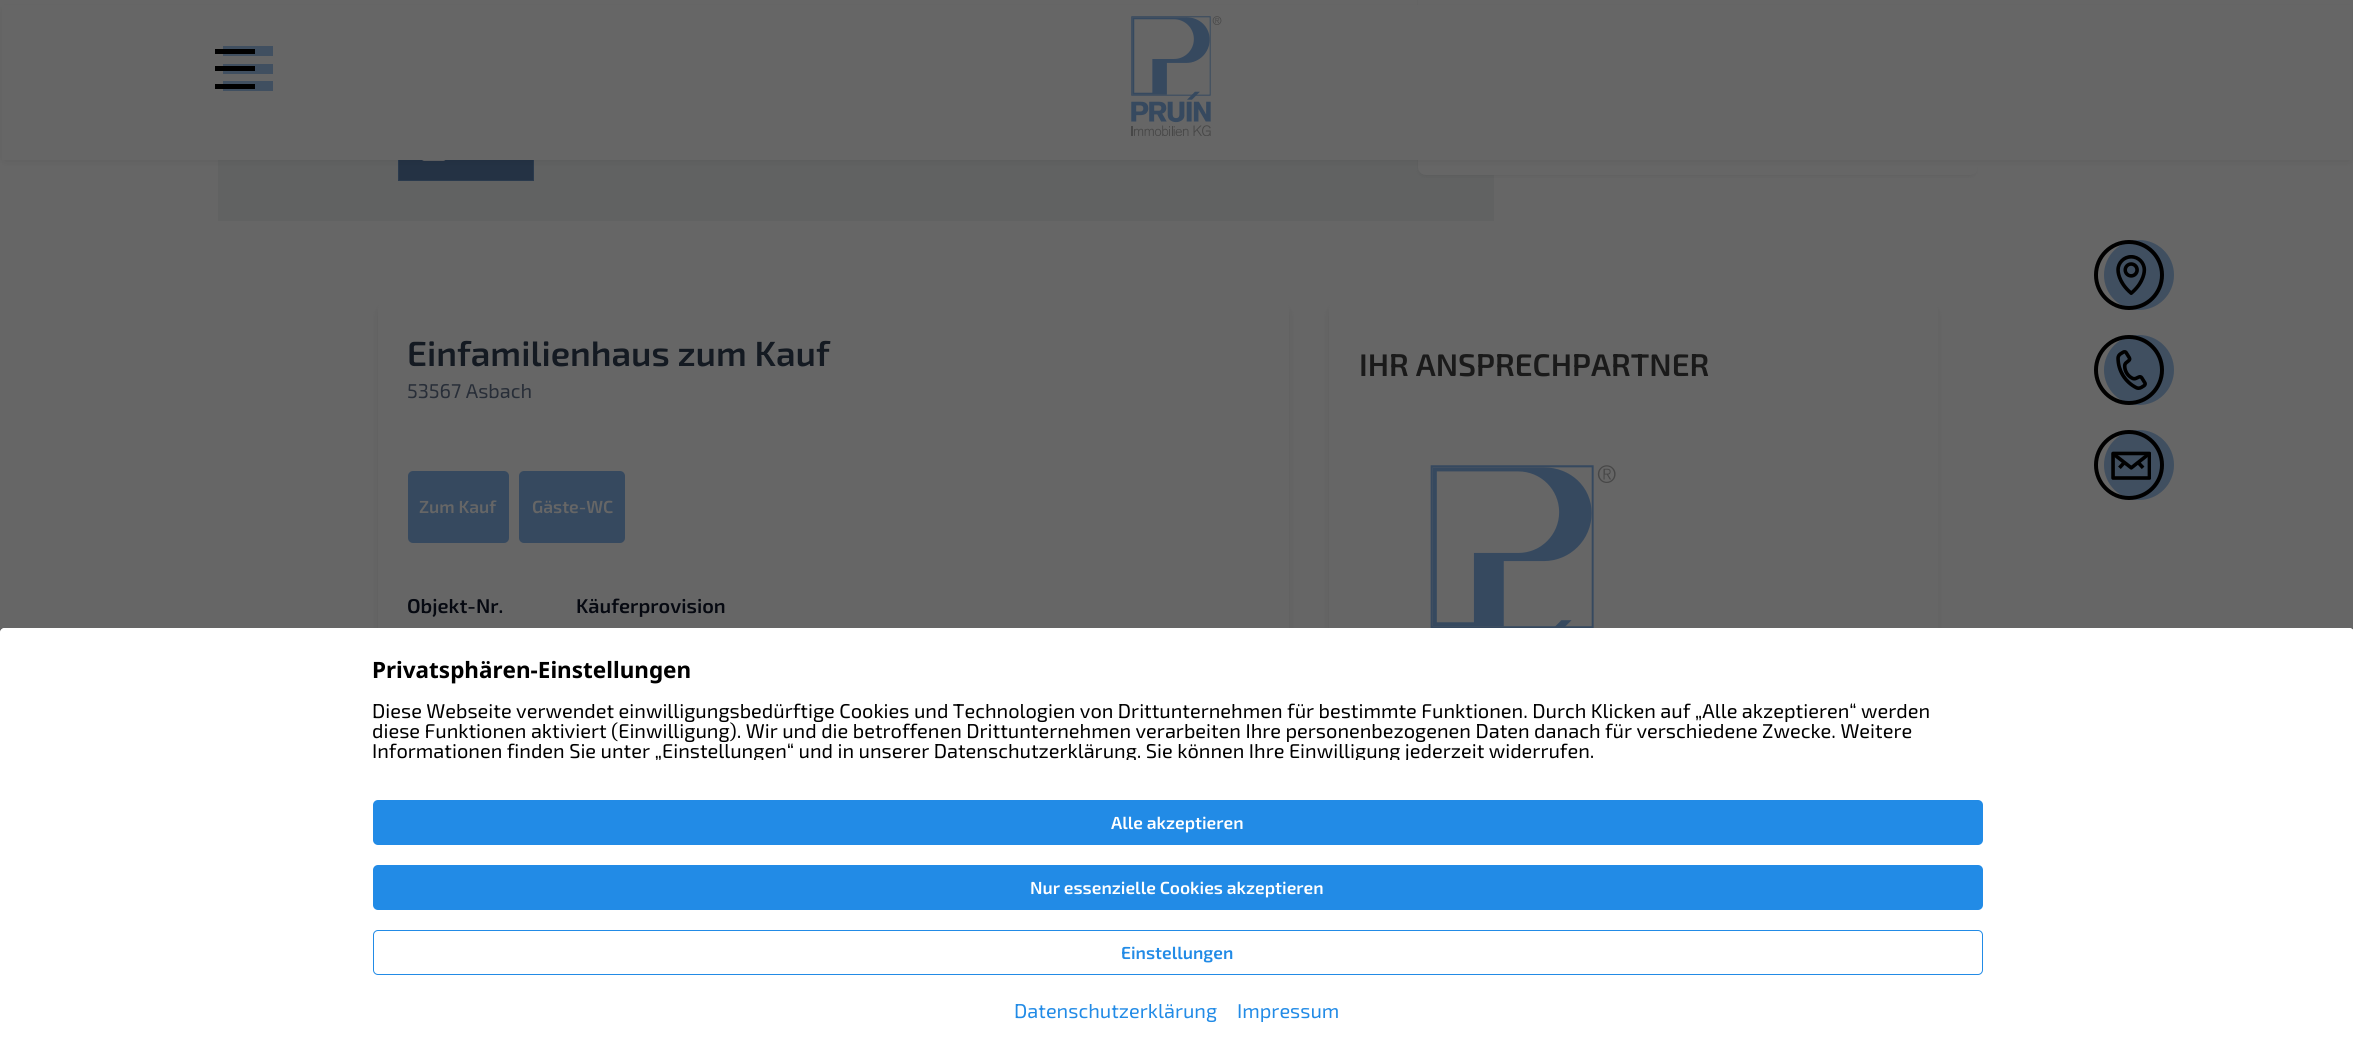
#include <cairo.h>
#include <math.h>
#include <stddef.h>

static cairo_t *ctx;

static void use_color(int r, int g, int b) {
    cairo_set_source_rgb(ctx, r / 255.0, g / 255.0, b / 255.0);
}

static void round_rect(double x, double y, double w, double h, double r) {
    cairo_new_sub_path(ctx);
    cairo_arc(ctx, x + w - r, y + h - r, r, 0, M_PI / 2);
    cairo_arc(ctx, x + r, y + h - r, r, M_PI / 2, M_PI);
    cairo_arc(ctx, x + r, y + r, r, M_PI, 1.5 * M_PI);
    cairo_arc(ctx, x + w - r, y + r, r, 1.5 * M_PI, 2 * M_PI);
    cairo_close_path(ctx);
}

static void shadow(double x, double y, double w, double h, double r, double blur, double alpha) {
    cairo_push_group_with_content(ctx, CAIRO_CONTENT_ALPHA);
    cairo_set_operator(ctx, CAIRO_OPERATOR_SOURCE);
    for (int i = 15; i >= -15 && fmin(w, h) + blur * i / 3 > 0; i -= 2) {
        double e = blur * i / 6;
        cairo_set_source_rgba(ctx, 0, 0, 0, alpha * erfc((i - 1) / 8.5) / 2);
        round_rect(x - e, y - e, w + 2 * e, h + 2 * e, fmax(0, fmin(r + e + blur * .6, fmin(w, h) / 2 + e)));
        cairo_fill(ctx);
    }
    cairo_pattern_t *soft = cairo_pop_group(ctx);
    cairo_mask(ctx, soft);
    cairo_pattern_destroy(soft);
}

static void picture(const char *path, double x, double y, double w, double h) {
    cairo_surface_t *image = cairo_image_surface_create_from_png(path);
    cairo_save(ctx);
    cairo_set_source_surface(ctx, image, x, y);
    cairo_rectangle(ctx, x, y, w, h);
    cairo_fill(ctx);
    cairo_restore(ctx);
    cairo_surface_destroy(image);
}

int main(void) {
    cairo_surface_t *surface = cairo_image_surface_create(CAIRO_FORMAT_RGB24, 2353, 1056);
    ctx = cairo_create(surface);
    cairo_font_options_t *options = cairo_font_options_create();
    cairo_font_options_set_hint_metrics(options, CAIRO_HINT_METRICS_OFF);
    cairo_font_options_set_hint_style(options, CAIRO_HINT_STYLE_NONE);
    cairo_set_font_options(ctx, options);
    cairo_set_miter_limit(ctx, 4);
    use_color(102, 102, 102);
    cairo_paint(ctx);
    use_color(97, 98, 98);
    cairo_rectangle(ctx, 218, 160, 1276, 61);
    cairo_fill(ctx);
    use_color(36, 50, 68);
    cairo_rectangle(ctx, 399, 160, 134, 20);
    cairo_fill(ctx);
    cairo_rectangle(ctx, 398.5, 119.5, 135, 61);
    use_color(42, 58, 77);
    cairo_set_line_width(ctx, 1);
    cairo_stroke(ctx);
    picture("img5.png", 422, 160, 24, 1);
    use_color(0, 0, 0);
    shadow(1420, -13, 555, 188, 5, 2.5, 0.1);
    use_color(102, 102, 102);
    round_rect(1418, -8, 560, 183, 8);
    cairo_fill(ctx);
    use_color(0, 0, 0);
    shadow(5, 10, 2344, 150, 0, 4, 0.1);
    use_color(102, 102, 102);
    cairo_rectangle(ctx, 2, 5, 2350, 155);
    cairo_fill(ctx);
    use_color(64, 79, 96);
    cairo_rectangle(ctx, 223, 46, 50, 10);
    cairo_fill(ctx);
    cairo_rectangle(ctx, 223, 64, 50, 10);
    cairo_fill(ctx);
    cairo_rectangle(ctx, 223, 81, 50, 10);
    cairo_fill(ctx);
    use_color(0, 0, 0);
    cairo_rectangle(ctx, 215, 49, 40, 5);
    cairo_fill(ctx);
    cairo_rectangle(ctx, 215, 66, 40, 5);
    cairo_fill(ctx);
    cairo_rectangle(ctx, 215, 84, 40, 5);
    cairo_fill(ctx);
    picture("img1.png", 1131, 16, 91, 120);
    use_color(64, 79, 96);
    cairo_arc(ctx, 2139, 275, 35, 0, 2 * M_PI);
    cairo_fill(ctx);
    cairo_arc(ctx, 2129, 275, 33, 0, 2 * M_PI);
    use_color(0, 0, 0);
    cairo_set_line_width(ctx, 4);
    cairo_stroke(ctx);
    picture("img2.png", 2116, 255, 31, 40);
    use_color(64, 79, 96);
    cairo_arc(ctx, 2139, 370, 35, 0, 2 * M_PI);
    cairo_fill(ctx);
    cairo_arc(ctx, 2129, 370, 33, 0, 2 * M_PI);
    use_color(0, 0, 0);
    cairo_stroke(ctx);
    picture("img3.png", 2116, 350, 31, 40);
    use_color(64, 79, 96);
    cairo_arc(ctx, 2139, 465, 35, 0, 2 * M_PI);
    cairo_fill(ctx);
    cairo_arc(ctx, 2129, 465, 33, 0, 2 * M_PI);
    use_color(0, 0, 0);
    cairo_stroke(ctx);
    picture("img4.png", 2111, 451, 40, 29);
    use_color(0, 0, 0);
    shadow(379, 308, 909, 405, 6, 4, 0.1);
    use_color(102, 102, 102);
    round_rect(378, 301, 911, 408, 8);
    cairo_fill(ctx);
    cairo_select_font_face(ctx, "Exo 2 SemiBold", CAIRO_FONT_SLANT_NORMAL, CAIRO_FONT_WEIGHT_NORMAL);
    cairo_set_font_size(ctx, 35);
    use_color(20, 26, 34);
    cairo_move_to(ctx, 407, 366);
    cairo_show_text(ctx, "Einfamilienhaus zum Kauf");
    cairo_select_font_face(ctx, "Exo 2", CAIRO_FONT_SLANT_NORMAL, CAIRO_FONT_WEIGHT_NORMAL);
    cairo_set_font_size(ctx, 20);
    use_color(40, 46, 56);
    cairo_move_to(ctx, 407, 398);
    cairo_show_text(ctx, "53567 Asbach");
    use_color(54, 73, 95);
    round_rect(408, 471, 101, 72, 5);
    cairo_fill(ctx);
    cairo_select_font_face(ctx, "Exo 2 SemiBold", CAIRO_FONT_SLANT_NORMAL, CAIRO_FONT_WEIGHT_NORMAL);
    cairo_set_font_size(ctx, 17.5);
    use_color(102, 102, 102);
    cairo_move_to(ctx, 419, 513);
    cairo_show_text(ctx, "Zum Kauf");
    use_color(54, 73, 95);
    round_rect(519, 471, 106, 72, 5);
    cairo_fill(ctx);
    use_color(102, 102, 102);
    cairo_move_to(ctx, 532, 513);
    cairo_show_text(ctx, "Gäste-WC");
    cairo_set_font_size(ctx, 20);
    use_color(6, 9, 17);
    cairo_move_to(ctx, 407, 613);
    cairo_show_text(ctx, "Objekt-Nr.");
    cairo_move_to(ctx, 576, 613);
    cairo_show_text(ctx, "Käuferprovision");
    use_color(0, 0, 0);
    shadow(1330, 308, 606, 678, 6, 4, 0.1);
    use_color(102, 102, 102);
    round_rect(1329, 301, 609, 682, 8);
    cairo_fill(ctx);
    cairo_set_font_size(ctx, 31.25);
    use_color(26, 26, 26);
    cairo_move_to(ctx, 1359, 376);
    cairo_show_text(ctx, "IHR ANSPRECHPARTNER");
    picture("img6.png", 1430, 465, 186, 163);
    use_color(255, 255, 255);
    cairo_new_path(ctx);
    cairo_move_to(ctx, 5, 628);
    cairo_line_to(ctx, 2349, 628);
    cairo_curve_to(ctx, 2352, 628, 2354, 630, 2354, 633);
    cairo_line_to(ctx, 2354, 1056);
    cairo_line_to(ctx, 0, 1056);
    cairo_line_to(ctx, 0, 633);
    cairo_curve_to(ctx, 0, 630, 2, 628, 5, 628);
    cairo_close_path(ctx);
    cairo_fill(ctx);
    round_rect(0, 628, 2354, 428, 5);
    cairo_fill(ctx);
    cairo_select_font_face(ctx, "Noto Sans", CAIRO_FONT_SLANT_NORMAL, CAIRO_FONT_WEIGHT_BOLD);
    cairo_set_font_size(ctx, 22.5);
    use_color(0, 0, 0);
    cairo_move_to(ctx, 372, 678);
    cairo_show_text(ctx, "Privatsphären-Einstellungen");
    cairo_select_font_face(ctx, "Exo 2", CAIRO_FONT_SLANT_NORMAL, CAIRO_FONT_WEIGHT_NORMAL);
    cairo_set_font_size(ctx, 20);
    cairo_move_to(ctx, 372, 718);
    cairo_show_text(ctx, "Diese Webseite verwendet einwilligungsbedürftige Cookies und Technologien von Drittunternehmen für bestimmte Funktionen. Durch Klicken auf „Alle akzeptieren“ werden");
    cairo_move_to(ctx, 372, 738);
    cairo_show_text(ctx, "diese Funktionen aktiviert (Einwilligung). Wir und die betroffenen Drittunternehmen verarbeiten Ihre personenbezogenen Daten danach für verschiedene Zwecke. Weitere");
    cairo_save(ctx);
    cairo_rectangle(ctx, 373, 700, 1610, 60);
    cairo_clip(ctx);
    cairo_move_to(ctx, 372, 758);
    cairo_show_text(ctx, "Informationen finden Sie unter „Einstellungen“ und in unserer Datenschutzerklärung. Sie können Ihre Einwilligung jederzeit widerrufen.");
    cairo_restore(ctx);
    use_color(34, 139, 230);
    round_rect(373, 800, 1610, 45, 5);
    cairo_fill(ctx);
    cairo_select_font_face(ctx, "Exo 2 SemiBold", CAIRO_FONT_SLANT_NORMAL, CAIRO_FONT_WEIGHT_NORMAL);
    cairo_set_font_size(ctx, 17.5);
    use_color(255, 255, 255);
    cairo_move_to(ctx, 1111, 829);
    cairo_show_text(ctx, "Alle akzeptieren");
    use_color(34, 139, 230);
    round_rect(373, 865, 1610, 45, 5);
    cairo_fill(ctx);
    use_color(255, 255, 255);
    cairo_move_to(ctx, 1030, 894);
    cairo_show_text(ctx, "Nur essenzielle Cookies akzeptieren");
    round_rect(373.5, 930.5, 1609, 44, 4.5);
    use_color(34, 139, 230);
    cairo_set_line_width(ctx, 1);
    cairo_stroke(ctx);
    cairo_move_to(ctx, 1121, 959);
    cairo_show_text(ctx, "Einstellungen");
    cairo_select_font_face(ctx, "Exo 2", CAIRO_FONT_SLANT_NORMAL, CAIRO_FONT_WEIGHT_NORMAL);
    cairo_set_font_size(ctx, 20);
    cairo_move_to(ctx, 1014, 1018);
    cairo_show_text(ctx, "Datenschutzerklärung");
    cairo_move_to(ctx, 1237, 1018);
    cairo_show_text(ctx, "Impressum");
    cairo_surface_write_to_png(surface, "result.png");
    cairo_font_options_destroy(options);
    cairo_destroy(ctx);
    cairo_surface_destroy(surface);
    return 0;
}
